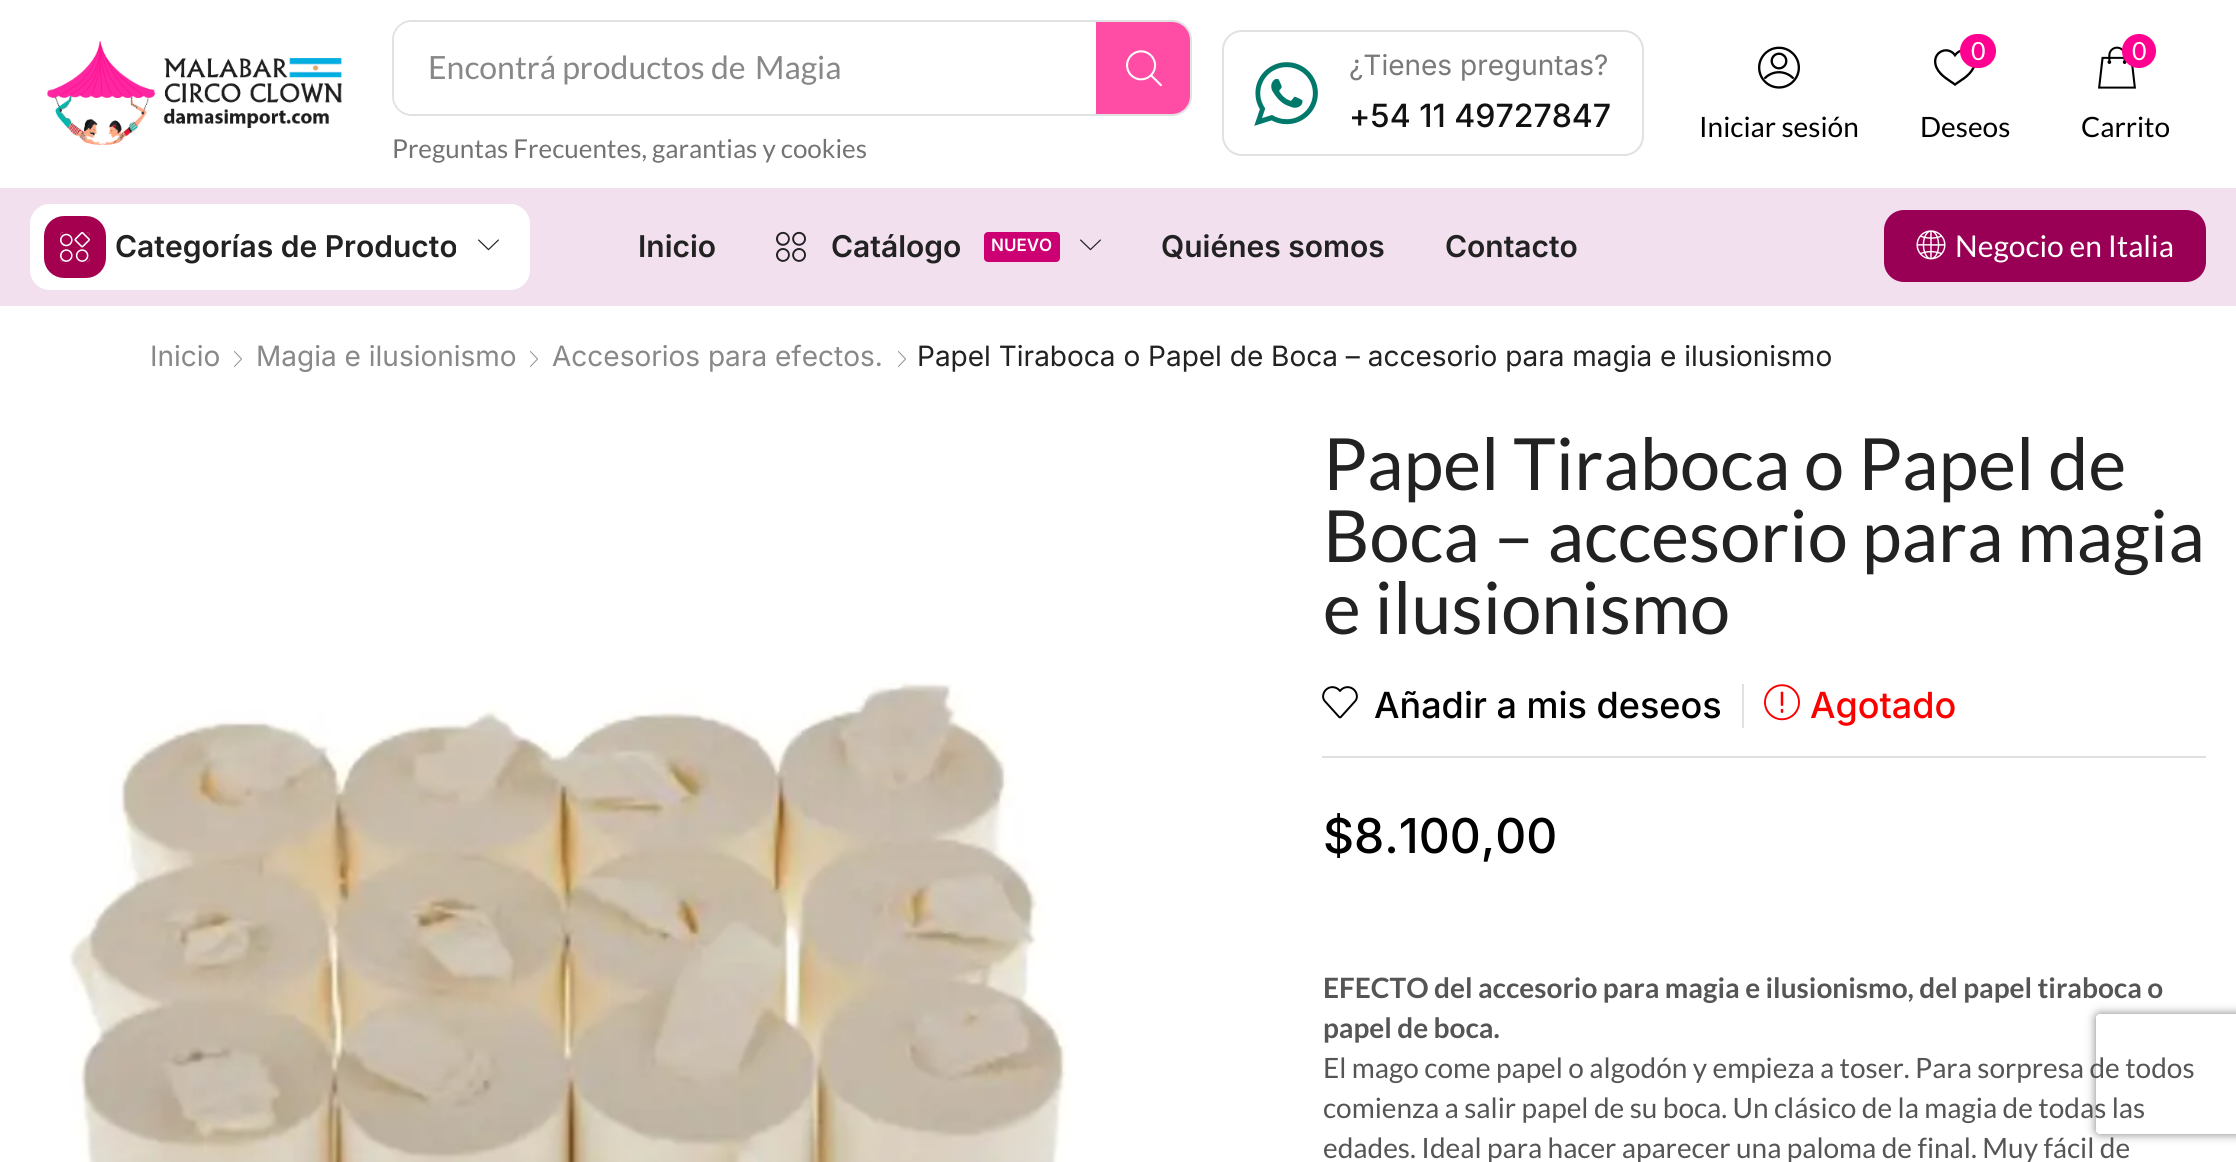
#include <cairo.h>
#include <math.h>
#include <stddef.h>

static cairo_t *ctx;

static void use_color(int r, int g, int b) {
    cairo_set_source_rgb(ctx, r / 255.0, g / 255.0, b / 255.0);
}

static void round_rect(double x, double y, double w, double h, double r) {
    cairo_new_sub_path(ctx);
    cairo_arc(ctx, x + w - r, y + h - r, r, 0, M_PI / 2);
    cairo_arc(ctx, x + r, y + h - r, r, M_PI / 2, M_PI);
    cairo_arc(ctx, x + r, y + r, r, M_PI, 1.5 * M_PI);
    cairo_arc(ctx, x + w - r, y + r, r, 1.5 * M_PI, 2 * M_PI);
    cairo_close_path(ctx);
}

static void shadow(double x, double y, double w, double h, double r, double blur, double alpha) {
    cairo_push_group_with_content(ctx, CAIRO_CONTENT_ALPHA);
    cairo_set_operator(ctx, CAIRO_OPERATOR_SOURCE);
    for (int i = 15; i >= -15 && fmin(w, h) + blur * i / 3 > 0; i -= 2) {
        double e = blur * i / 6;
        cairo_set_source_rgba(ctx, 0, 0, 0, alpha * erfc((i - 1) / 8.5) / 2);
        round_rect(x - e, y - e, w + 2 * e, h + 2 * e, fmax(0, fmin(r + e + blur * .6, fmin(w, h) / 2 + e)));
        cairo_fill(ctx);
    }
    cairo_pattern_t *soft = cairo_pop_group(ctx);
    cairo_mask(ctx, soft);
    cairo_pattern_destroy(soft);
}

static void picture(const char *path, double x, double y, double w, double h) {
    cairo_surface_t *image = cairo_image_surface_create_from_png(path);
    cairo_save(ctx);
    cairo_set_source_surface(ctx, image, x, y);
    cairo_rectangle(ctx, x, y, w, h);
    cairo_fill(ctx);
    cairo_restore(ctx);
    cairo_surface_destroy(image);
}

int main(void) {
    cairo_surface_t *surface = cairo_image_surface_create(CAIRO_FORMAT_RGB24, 2236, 1162);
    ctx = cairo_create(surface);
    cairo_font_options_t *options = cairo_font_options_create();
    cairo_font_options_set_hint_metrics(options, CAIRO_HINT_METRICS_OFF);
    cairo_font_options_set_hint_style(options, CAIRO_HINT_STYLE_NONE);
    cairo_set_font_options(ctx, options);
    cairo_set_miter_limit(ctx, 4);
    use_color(255, 255, 255);
    cairo_paint(ctx);
    picture("img1.png", 47, 41, 295, 104);
    round_rect(393, 21, 798, 94, 19);
    use_color(225, 225, 225);
    cairo_stroke(ctx);
    use_color(255, 255, 255);
    cairo_new_path(ctx);
    cairo_move_to(ctx, 412, 22);
    cairo_line_to(ctx, 1096, 22);
    cairo_line_to(ctx, 1096, 114);
    cairo_line_to(ctx, 412, 114);
    cairo_curve_to(ctx, 402, 114, 394, 106, 394, 96);
    cairo_line_to(ctx, 394, 40);
    cairo_curve_to(ctx, 394, 30, 402, 22, 412, 22);
    cairo_close_path(ctx);
    cairo_fill(ctx);
    cairo_select_font_face(ctx, "Lato", CAIRO_FONT_SLANT_NORMAL, CAIRO_FONT_WEIGHT_NORMAL);
    cairo_set_font_size(ctx, 32);
    use_color(136, 136, 136);
    cairo_move_to(ctx, 428, 79);
    cairo_show_text(ctx, "Encontrá productos de");
    cairo_move_to(ctx, 755, 79);
    cairo_show_text(ctx, "Magia");
    use_color(255, 77, 166);
    cairo_new_path(ctx);
    cairo_move_to(ctx, 1096, 22);
    cairo_line_to(ctx, 1172, 22);
    cairo_curve_to(ctx, 1182, 22, 1190, 30, 1190, 40);
    cairo_line_to(ctx, 1190, 96);
    cairo_curve_to(ctx, 1190, 106, 1182, 114, 1172, 114);
    cairo_line_to(ctx, 1096, 114);
    cairo_close_path(ctx);
    cairo_fill(ctx);
    picture("img2.png", 1126, 50, 36, 37);
    cairo_set_font_size(ctx, 26);
    use_color(115, 115, 115);
    cairo_move_to(ctx, 392, 158);
    cairo_show_text(ctx, "Preguntas Frecuentes, garantias y cookies");
    round_rect(1223, 31, 420, 124, 19);
    use_color(225, 225, 225);
    cairo_stroke(ctx);
    picture("img3.png", 1254, 62, 64, 64);
    cairo_select_font_face(ctx, "Inter", CAIRO_FONT_SLANT_NORMAL, CAIRO_FONT_WEIGHT_NORMAL);
    cairo_set_font_size(ctx, 28);
    use_color(122, 122, 122);
    cairo_move_to(ctx, 1349, 75);
    cairo_show_text(ctx, "¿Tienes preguntas?");
    cairo_select_font_face(ctx, "Inter Medium", CAIRO_FONT_SLANT_NORMAL, CAIRO_FONT_WEIGHT_NORMAL);
    cairo_set_font_size(ctx, 32);
    use_color(17, 17, 17);
    cairo_move_to(ctx, 1349, 127);
    cairo_show_text(ctx, "+54 11 49727847");
    picture("img4.png", 1758, 46, 42, 43);
    cairo_select_font_face(ctx, "Lato", CAIRO_FONT_SLANT_NORMAL, CAIRO_FONT_WEIGHT_NORMAL);
    cairo_set_font_size(ctx, 28);
    use_color(0, 0, 0);
    cairo_move_to(ctx, 1699, 137);
    cairo_show_text(ctx, "Iniciar sesión");
    picture("img5.png", 1934, 49, 41, 37);
    use_color(255, 0, 144);
    round_rect(1960, 34, 36, 34, 17);
    cairo_fill(ctx);
    cairo_set_font_size(ctx, 25);
    use_color(255, 255, 255);
    cairo_move_to(ctx, 1971, 60);
    cairo_show_text(ctx, "0");
    cairo_set_font_size(ctx, 28);
    use_color(0, 0, 0);
    cairo_move_to(ctx, 1920, 137);
    cairo_show_text(ctx, "Deseos");
    picture("img6.png", 2098, 46, 38, 43);
    use_color(255, 0, 144);
    cairo_arc(ctx, 2139, 51, 17, 0, 2 * M_PI);
    cairo_fill(ctx);
    cairo_set_font_size(ctx, 25);
    use_color(255, 255, 255);
    cairo_move_to(ctx, 2132, 60);
    cairo_show_text(ctx, "0");
    cairo_set_font_size(ctx, 28);
    use_color(0, 0, 0);
    cairo_move_to(ctx, 2081, 137);
    cairo_show_text(ctx, "Carrito");
    use_color(242, 224, 239);
    cairo_rectangle(ctx, 0, 188, 2236, 118);
    cairo_fill(ctx);
    use_color(255, 255, 255);
    round_rect(30, 204, 500, 86, 20);
    cairo_fill(ctx);
    round_rect(52, 224, 46, 46, 12);
    use_color(164, 0, 79);
    cairo_set_line_width(ctx, 16);
    cairo_stroke(ctx);
    round_rect(60, 232, 30, 30, 4);
    cairo_fill(ctx);
    picture("img7.png", 60, 231, 30, 31);
    cairo_select_font_face(ctx, "Inter SemiBold", CAIRO_FONT_SLANT_NORMAL, CAIRO_FONT_WEIGHT_NORMAL);
    cairo_set_font_size(ctx, 30);
    use_color(34, 34, 34);
    cairo_move_to(ctx, 115, 257);
    cairo_show_text(ctx, "Categorías de Producto");
    picture("img8.png", 478, 239, 21, 12);
    cairo_move_to(ctx, 638, 257);
    cairo_show_text(ctx, "Inicio");
    picture("img9.png", 776, 231, 30, 31);
    cairo_move_to(ctx, 831, 257);
    cairo_show_text(ctx, "Catálogo");
    use_color(204, 0, 115);
    round_rect(984, 232, 76, 30, 4);
    cairo_fill(ctx);
    cairo_set_font_size(ctx, 17);
    use_color(255, 255, 255);
    cairo_move_to(ctx, 991, 251);
    cairo_show_text(ctx, "NUEVO");
    picture("img10.png", 1080, 239, 21, 12);
    cairo_set_font_size(ctx, 30);
    use_color(34, 34, 34);
    cairo_move_to(ctx, 1161, 257);
    cairo_show_text(ctx, "Quiénes somos");
    cairo_move_to(ctx, 1445, 257);
    cairo_show_text(ctx, "Contacto");
    use_color(153, 0, 85);
    round_rect(1884, 210, 322, 72, 20);
    cairo_fill(ctx);
    picture("img11.png", 1916, 230, 30, 30);
    cairo_select_font_face(ctx, "Lato", CAIRO_FONT_SLANT_NORMAL, CAIRO_FONT_WEIGHT_NORMAL);
    use_color(255, 255, 255);
    cairo_move_to(ctx, 1955, 257);
    cairo_show_text(ctx, "Negocio en Italia");
    cairo_select_font_face(ctx, "Inter", CAIRO_FONT_SLANT_NORMAL, CAIRO_FONT_WEIGHT_NORMAL);
    cairo_set_font_size(ctx, 28);
    use_color(136, 136, 136);
    cairo_move_to(ctx, 150, 366);
    cairo_show_text(ctx, "Inicio");
    picture("img12.png", 234, 351, 8, 16);
    cairo_move_to(ctx, 256, 366);
    cairo_show_text(ctx, "Magia e ilusionismo");
    picture("img12.png", 530, 351, 8, 16);
    cairo_move_to(ctx, 552, 366);
    cairo_show_text(ctx, "Accesorios para efectos.");
    picture("img12.png", 898, 351, 8, 16);
    use_color(34, 34, 34);
    cairo_move_to(ctx, 917, 366);
    cairo_show_text(ctx, "Papel Tiraboca o Papel de Boca – accesorio para magia e ilusionismo");
    picture("img13.png", 69, 681, 1000, 481);
    cairo_select_font_face(ctx, "Lato", CAIRO_FONT_SLANT_NORMAL, CAIRO_FONT_WEIGHT_NORMAL);
    cairo_set_font_size(ctx, 72);
    cairo_move_to(ctx, 1323, 490);
    cairo_show_text(ctx, "Papel Tiraboca o Papel de");
    cairo_move_to(ctx, 1323, 562);
    cairo_show_text(ctx, "Boca – accesorio para magia");
    cairo_move_to(ctx, 1323, 634);
    cairo_show_text(ctx, "e ilusionismo");
    use_color(225, 225, 225);
    cairo_rectangle(ctx, 1742, 684, 2, 44);
    cairo_fill(ctx);
    picture("img14.png", 1322, 686, 36, 33);
    cairo_select_font_face(ctx, "Inter Medium", CAIRO_FONT_SLANT_NORMAL, CAIRO_FONT_WEIGHT_NORMAL);
    cairo_set_font_size(ctx, 36);
    use_color(0, 0, 0);
    cairo_move_to(ctx, 1374, 718);
    cairo_show_text(ctx, "Añadir a mis deseos");
    picture("img15.png", 1764, 684, 36, 37);
    use_color(252, 0, 0);
    cairo_move_to(ctx, 1810, 718);
    cairo_show_text(ctx, "Agotado");
    use_color(224, 224, 224);
    cairo_rectangle(ctx, 1322, 756, 884, 2);
    cairo_fill(ctx);
    cairo_set_font_size(ctx, 48);
    use_color(0, 0, 0);
    cairo_move_to(ctx, 1323, 853);
    cairo_show_text(ctx, "$8.100,00");
    cairo_save(ctx);
    cairo_set_fill_rule(ctx, CAIRO_FILL_RULE_EVEN_ODD);
    cairo_new_path(ctx);
    cairo_move_to(ctx, 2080, 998);
    cairo_line_to(ctx, 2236, 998);
    cairo_line_to(ctx, 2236, 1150);
    cairo_line_to(ctx, 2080, 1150);
    cairo_close_path(ctx);
    cairo_move_to(ctx, 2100, 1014);
    cairo_line_to(ctx, 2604, 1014);
    cairo_curve_to(ctx, 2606, 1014, 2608, 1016, 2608, 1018);
    cairo_line_to(ctx, 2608, 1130);
    cairo_curve_to(ctx, 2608, 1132, 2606, 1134, 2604, 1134);
    cairo_line_to(ctx, 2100, 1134);
    cairo_curve_to(ctx, 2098, 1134, 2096, 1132, 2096, 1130);
    cairo_line_to(ctx, 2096, 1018);
    cairo_curve_to(ctx, 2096, 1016, 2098, 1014, 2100, 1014);
    cairo_close_path(ctx);
    cairo_clip(ctx);
    use_color(128, 128, 128);
    shadow(2096, 1014, 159, 120, 4, 5, 1);
    cairo_restore(ctx);
    cairo_select_font_face(ctx, "Lato", CAIRO_FONT_SLANT_NORMAL, CAIRO_FONT_WEIGHT_BOLD);
    cairo_set_font_size(ctx, 28);
    use_color(85, 85, 85);
    cairo_move_to(ctx, 1323, 998);
    cairo_show_text(ctx, "EFECTO del accesorio para magia e ilusionismo, del papel tiraboca o");
    cairo_move_to(ctx, 1323, 1038);
    cairo_show_text(ctx, "papel de boca.");
    cairo_select_font_face(ctx, "Lato", CAIRO_FONT_SLANT_NORMAL, CAIRO_FONT_WEIGHT_NORMAL);
    cairo_move_to(ctx, 1323, 1078);
    cairo_show_text(ctx, "El mago come papel o algodón y empieza a toser. Para sorpresa de todos");
    cairo_move_to(ctx, 1323, 1118);
    cairo_show_text(ctx, "comienza a salir papel de su boca. Un clásico de la magia de todas las");
    cairo_move_to(ctx, 1323, 1158);
    cairo_show_text(ctx, "edades. Ideal para hacer aparecer una paloma de final. Muy fácil de");
    cairo_surface_write_to_png(surface, "result.png");
    cairo_font_options_destroy(options);
    cairo_destroy(ctx);
    cairo_surface_destroy(surface);
    return 0;
}
